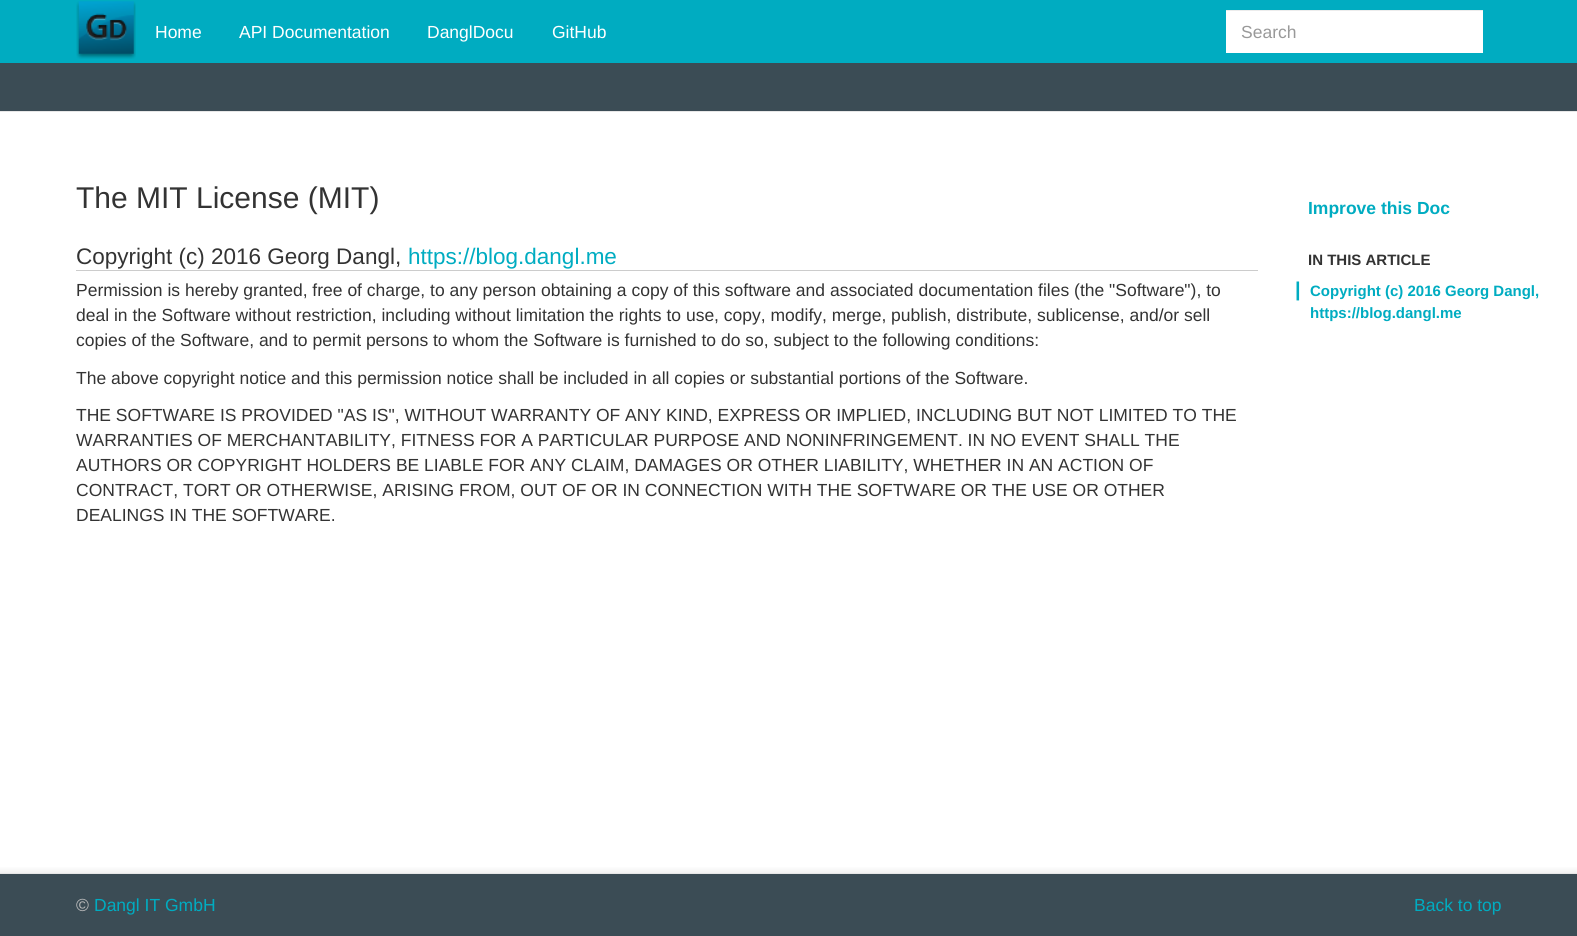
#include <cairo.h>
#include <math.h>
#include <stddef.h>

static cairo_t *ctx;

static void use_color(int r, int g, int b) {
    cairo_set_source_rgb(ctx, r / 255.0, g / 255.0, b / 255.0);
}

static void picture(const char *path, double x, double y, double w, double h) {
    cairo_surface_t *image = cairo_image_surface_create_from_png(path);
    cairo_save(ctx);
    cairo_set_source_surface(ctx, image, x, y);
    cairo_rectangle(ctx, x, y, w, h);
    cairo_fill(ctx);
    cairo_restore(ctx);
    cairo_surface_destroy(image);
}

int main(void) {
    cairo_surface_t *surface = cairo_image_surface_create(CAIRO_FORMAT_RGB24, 1577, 936);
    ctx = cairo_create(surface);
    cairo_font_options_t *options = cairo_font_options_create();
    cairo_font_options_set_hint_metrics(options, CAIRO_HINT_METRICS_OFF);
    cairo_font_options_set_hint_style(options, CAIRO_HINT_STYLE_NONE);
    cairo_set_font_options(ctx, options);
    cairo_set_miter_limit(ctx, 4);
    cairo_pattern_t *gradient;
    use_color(255, 255, 255);
    cairo_paint(ctx);
    use_color(0, 172, 193);
    cairo_rectangle(ctx, 0, 0, 1577, 63);
    cairo_fill(ctx);
    picture("img1.png", 76, 1, 60, 58);
    cairo_select_font_face(ctx, "Liberation Sans", CAIRO_FONT_SLANT_NORMAL, CAIRO_FONT_WEIGHT_NORMAL);
    cairo_set_font_size(ctx, 17.5);
    use_color(255, 255, 255);
    cairo_move_to(ctx, 155, 38);
    cairo_show_text(ctx, "Home");
    cairo_move_to(ctx, 239, 38);
    cairo_show_text(ctx, "API Documentation");
    cairo_move_to(ctx, 427, 38);
    cairo_show_text(ctx, "DanglDocu");
    cairo_move_to(ctx, 552, 38);
    cairo_show_text(ctx, "GitHub");
    cairo_rectangle(ctx, 1226, 11, 257, 42);
    cairo_fill(ctx);
    use_color(236, 236, 236);
    cairo_rectangle(ctx, 1226, 10, 257, 1);
    cairo_fill(ctx);
    use_color(153, 153, 153);
    cairo_move_to(ctx, 1241, 38);
    cairo_show_text(ctx, "Search");
    use_color(59, 76, 85);
    cairo_rectangle(ctx, 0, 63, 1577, 48);
    cairo_fill(ctx);
    use_color(231, 231, 231);
    cairo_rectangle(ctx, 0, 111, 1577, 1);
    cairo_fill(ctx);
    cairo_set_font_size(ctx, 30);
    use_color(51, 51, 51);
    cairo_move_to(ctx, 76, 208);
    cairo_show_text(ctx, "The MIT License (MIT)");
    use_color(204, 204, 204);
    cairo_rectangle(ctx, 76, 270, 1182, 1);
    cairo_fill(ctx);
    cairo_set_font_size(ctx, 22.5);
    use_color(51, 51, 51);
    cairo_move_to(ctx, 76, 264);
    cairo_show_text(ctx, "Copyright (c) 2016 Georg Dangl,");
    use_color(0, 172, 193);
    cairo_move_to(ctx, 408, 264);
    cairo_show_text(ctx, "https://blog.dangl.me");
    cairo_set_font_size(ctx, 17.5);
    use_color(51, 51, 51);
    cairo_move_to(ctx, 76, 296);
    cairo_show_text(ctx, "Permission is hereby granted, free of charge, to any person obtaining a copy of this software and associated documentation files (the \"Software\"), to");
    cairo_move_to(ctx, 76, 321);
    cairo_show_text(ctx, "deal in the Software without restriction, including without limitation the rights to use, copy, modify, merge, publish, distribute, sublicense, and/or sell");
    cairo_move_to(ctx, 76, 346);
    cairo_show_text(ctx, "copies of the Software, and to permit persons to whom the Software is furnished to do so, subject to the following conditions:");
    cairo_move_to(ctx, 76, 384);
    cairo_show_text(ctx, "The above copyright notice and this permission notice shall be included in all copies or substantial portions of the Software.");
    cairo_move_to(ctx, 76, 421);
    cairo_show_text(ctx, "THE SOFTWARE IS PROVIDED \"AS IS\", WITHOUT WARRANTY OF ANY KIND, EXPRESS OR IMPLIED, INCLUDING BUT NOT LIMITED TO THE");
    cairo_move_to(ctx, 76, 446);
    cairo_show_text(ctx, "WARRANTIES OF MERCHANTABILITY, FITNESS FOR A PARTICULAR PURPOSE AND NONINFRINGEMENT. IN NO EVENT SHALL THE");
    cairo_move_to(ctx, 76, 471);
    cairo_show_text(ctx, "AUTHORS OR COPYRIGHT HOLDERS BE LIABLE FOR ANY CLAIM, DAMAGES OR OTHER LIABILITY, WHETHER IN AN ACTION OF");
    cairo_move_to(ctx, 76, 496);
    cairo_show_text(ctx, "CONTRACT, TORT OR OTHERWISE, ARISING FROM, OUT OF OR IN CONNECTION WITH THE SOFTWARE OR THE USE OR OTHER");
    cairo_move_to(ctx, 76, 521);
    cairo_show_text(ctx, "DEALINGS IN THE SOFTWARE.");
    cairo_select_font_face(ctx, "Liberation Sans", CAIRO_FONT_SLANT_NORMAL, CAIRO_FONT_WEIGHT_BOLD);
    use_color(0, 172, 193);
    cairo_move_to(ctx, 1308, 214);
    cairo_show_text(ctx, "Improve this Doc");
    cairo_set_font_size(ctx, 15);
    use_color(51, 51, 51);
    cairo_move_to(ctx, 1308, 265);
    cairo_show_text(ctx, "IN THIS ARTICLE");
    cairo_set_font_size(ctx, 20);
    use_color(0, 172, 193);
    cairo_move_to(ctx, 1295, 296);
    cairo_show_text(ctx, "|");
    cairo_set_font_size(ctx, 15);
    cairo_move_to(ctx, 1310, 296);
    cairo_show_text(ctx, "Copyright (c) 2016 Georg Dangl,");
    cairo_move_to(ctx, 1310, 318);
    cairo_show_text(ctx, "https://blog.dangl.me");
    gradient = cairo_pattern_create_linear(789, 866, 789, 873);
    cairo_pattern_add_color_stop_rgba(gradient, 0, 1, 1, 1, 1);
    cairo_pattern_add_color_stop_rgba(gradient, 1, 0.949, 0.949, 0.949, 1);
    cairo_set_source(ctx, gradient);
    cairo_pattern_destroy(gradient);
    cairo_rectangle(ctx, 0, 867, 1577, 6);
    cairo_fill(ctx);
    use_color(59, 76, 85);
    cairo_rectangle(ctx, 0, 874, 1577, 62);
    cairo_fill(ctx);
    use_color(231, 231, 231);
    cairo_rectangle(ctx, 0, 873, 1577, 1);
    cairo_fill(ctx);
    cairo_select_font_face(ctx, "Liberation Sans", CAIRO_FONT_SLANT_NORMAL, CAIRO_FONT_WEIGHT_NORMAL);
    cairo_set_font_size(ctx, 17.5);
    use_color(189, 189, 189);
    cairo_move_to(ctx, 76, 911);
    cairo_show_text(ctx, "©");
    use_color(0, 172, 193);
    cairo_move_to(ctx, 94, 911);
    cairo_show_text(ctx, "Dangl IT GmbH");
    cairo_move_to(ctx, 1414, 911);
    cairo_show_text(ctx, "Back to top");
    cairo_surface_write_to_png(surface, "result.png");
    cairo_font_options_destroy(options);
    cairo_destroy(ctx);
    cairo_surface_destroy(surface);
    return 0;
}
